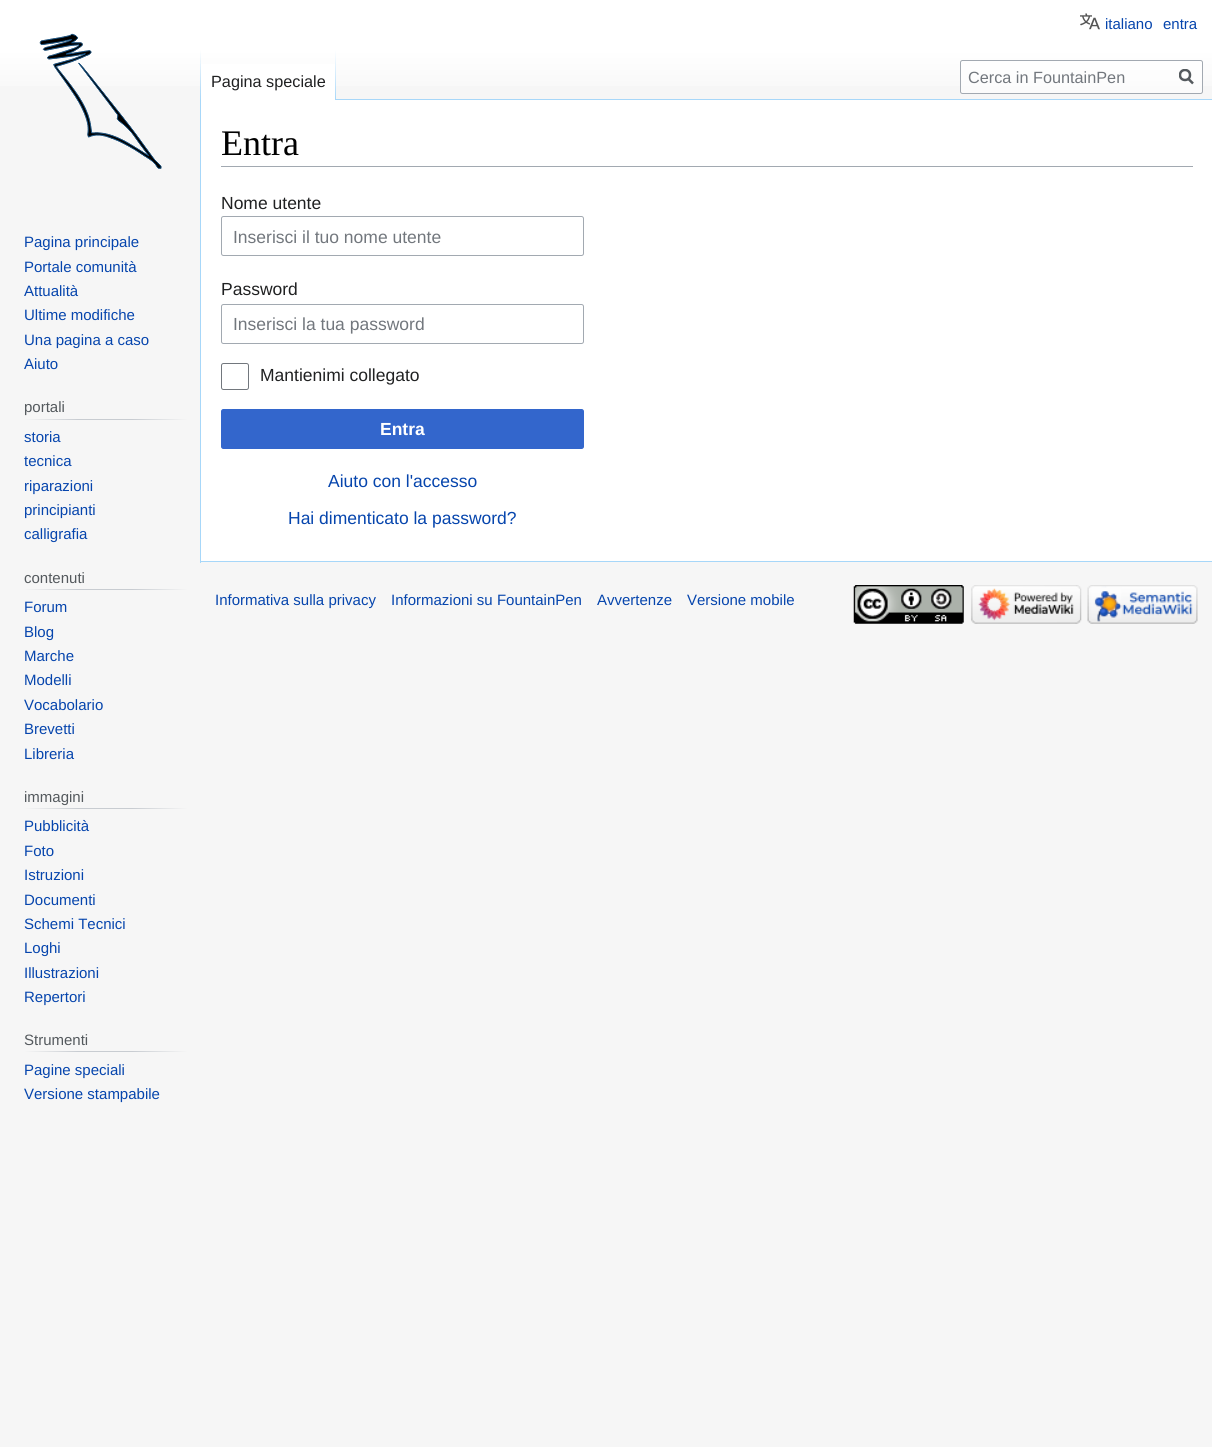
#include <cairo.h>
#include <math.h>
#include <stddef.h>

static cairo_t *ctx;

static void use_color(int r, int g, int b) {
    cairo_set_source_rgb(ctx, r / 255.0, g / 255.0, b / 255.0);
}

static void round_rect(double x, double y, double w, double h, double r) {
    cairo_new_sub_path(ctx);
    cairo_arc(ctx, x + w - r, y + h - r, r, 0, M_PI / 2);
    cairo_arc(ctx, x + r, y + h - r, r, M_PI / 2, M_PI);
    cairo_arc(ctx, x + r, y + r, r, M_PI, 1.5 * M_PI);
    cairo_arc(ctx, x + w - r, y + r, r, 1.5 * M_PI, 2 * M_PI);
    cairo_close_path(ctx);
}

static void picture(const char *path, double x, double y, double w, double h) {
    cairo_surface_t *image = cairo_image_surface_create_from_png(path);
    cairo_save(ctx);
    cairo_set_source_surface(ctx, image, x, y);
    cairo_rectangle(ctx, x, y, w, h);
    cairo_fill(ctx);
    cairo_restore(ctx);
    cairo_surface_destroy(image);
}

int main(void) {
    cairo_surface_t *surface = cairo_image_surface_create(CAIRO_FORMAT_RGB24, 1212, 1447);
    ctx = cairo_create(surface);
    cairo_font_options_t *options = cairo_font_options_create();
    cairo_font_options_set_hint_metrics(options, CAIRO_HINT_METRICS_OFF);
    cairo_font_options_set_hint_style(options, CAIRO_HINT_STYLE_NONE);
    cairo_set_font_options(ctx, options);
    cairo_set_miter_limit(ctx, 4);
    cairo_pattern_t *gradient;
    use_color(246, 246, 246);
    cairo_paint(ctx);
    gradient = cairo_pattern_create_linear(606, 0, 606, 100);
    cairo_pattern_add_color_stop_rgba(gradient, 0.5, 1, 1, 1, 1);
    cairo_pattern_add_color_stop_rgba(gradient, 1, 0.965, 0.965, 0.965, 1);
    cairo_set_source(ctx, gradient);
    cairo_pattern_destroy(gradient);
    cairo_rectangle(ctx, 0, 0, 1212, 86);
    cairo_fill(ctx);
    picture("img1.png", 1080, 13, 20, 17);
    cairo_select_font_face(ctx, "Liberation Sans", CAIRO_FONT_SLANT_NORMAL, CAIRO_FONT_WEIGHT_NORMAL);
    cairo_set_font_size(ctx, 15);
    use_color(6, 69, 173);
    cairo_move_to(ctx, 1105, 29);
    cairo_show_text(ctx, "italiano");
    cairo_move_to(ctx, 1163, 29);
    cairo_show_text(ctx, "entra");
    use_color(167, 215, 249);
    cairo_rectangle(ctx, 200, 561, 1012, 1);
    cairo_fill(ctx);
    cairo_rectangle(ctx, 200, 99, 1, 464);
    cairo_fill(ctx);
    gradient = cairo_pattern_create_linear(201, 50, 201, 100);
    cairo_pattern_add_color_stop_rgba(gradient, 0, 0.655, 0.843, 0.976, 0);
    cairo_pattern_add_color_stop_rgba(gradient, 1, 0.655, 0.843, 0.976, 1);
    cairo_set_source(ctx, gradient);
    cairo_pattern_destroy(gradient);
    cairo_rectangle(ctx, 200, 50, 1, 50);
    cairo_fill(ctx);
    use_color(255, 255, 255);
    cairo_rectangle(ctx, 201, 64, 134, 36);
    cairo_fill(ctx);
    gradient = cairo_pattern_create_linear(336, 50, 336, 100);
    cairo_pattern_add_color_stop_rgba(gradient, 0, 1, 1, 1, 1);
    cairo_pattern_add_color_stop_rgba(gradient, 1, 0.655, 0.843, 0.976, 1);
    cairo_set_source(ctx, gradient);
    cairo_pattern_destroy(gradient);
    cairo_rectangle(ctx, 335, 50, 1, 50);
    cairo_fill(ctx);
    cairo_set_font_size(ctx, 16.25);
    use_color(32, 33, 34);
    cairo_move_to(ctx, 211, 87);
    cairo_show_text(ctx, "Pagina speciale");
    cairo_set_source_rgba(ctx, 1, 1, 1, 0.5);
    round_rect(960.5, 60.5, 242, 33, 2);
    cairo_fill_preserve(ctx);
    use_color(162, 169, 177);
    cairo_set_line_width(ctx, 1);
    cairo_stroke(ctx);
    use_color(114, 119, 125);
    cairo_move_to(ctx, 968, 83);
    cairo_show_text(ctx, "Cerca in FountainPen");
    cairo_new_path(ctx);
    cairo_move_to(ctx, 1193, 83.5);
    cairo_line_to(ctx, 1188, 78.5);
    use_color(84, 89, 93);
    cairo_set_line_width(ctx, 2.5);
    cairo_stroke(ctx);
    cairo_save(ctx);
    cairo_rectangle(ctx, 1179, 69, 15, 16);
    cairo_clip(ctx);
    cairo_arc(ctx, 1185, 75, 5, 0, 2 * M_PI);
    cairo_stroke(ctx);
    cairo_restore(ctx);
    picture("img2.png", 39, 33, 123, 136);
    cairo_set_font_size(ctx, 15);
    use_color(6, 69, 173);
    cairo_move_to(ctx, 24, 247);
    cairo_show_text(ctx, "Pagina principale");
    cairo_move_to(ctx, 24, 272);
    cairo_show_text(ctx, "Portale comunità");
    cairo_move_to(ctx, 24, 296);
    cairo_show_text(ctx, "Attualità");
    cairo_move_to(ctx, 24, 320);
    cairo_show_text(ctx, "Ultime modifiche");
    cairo_move_to(ctx, 24, 345);
    cairo_show_text(ctx, "Una pagina a caso");
    cairo_move_to(ctx, 24, 369);
    cairo_show_text(ctx, "Aiuto");
    gradient = cairo_pattern_create_linear(24, 419, 188, 419);
    cairo_pattern_add_color_stop_rgba(gradient, 0, 0.965, 0.965, 0.965, 1);
    cairo_pattern_add_color_stop_rgba(gradient, 0.33, 0.784, 0.8, 0.82, 1);
    cairo_pattern_add_color_stop_rgba(gradient, 0.66, 0.784, 0.8, 0.82, 1);
    cairo_pattern_add_color_stop_rgba(gradient, 1, 0.965, 0.965, 0.965, 1);
    cairo_set_source(ctx, gradient);
    cairo_pattern_destroy(gradient);
    cairo_rectangle(ctx, 24, 419, 164, 1);
    cairo_fill(ctx);
    use_color(84, 89, 93);
    cairo_move_to(ctx, 24, 412);
    cairo_show_text(ctx, "portali");
    use_color(6, 69, 173);
    cairo_move_to(ctx, 24, 442);
    cairo_show_text(ctx, "storia");
    cairo_move_to(ctx, 24, 466);
    cairo_show_text(ctx, "tecnica");
    cairo_move_to(ctx, 24, 491);
    cairo_show_text(ctx, "riparazioni");
    cairo_move_to(ctx, 24, 515);
    cairo_show_text(ctx, "principianti");
    cairo_move_to(ctx, 24, 539);
    cairo_show_text(ctx, "calligrafia");
    gradient = cairo_pattern_create_linear(24, 589, 188, 589);
    cairo_pattern_add_color_stop_rgba(gradient, 0, 0.965, 0.965, 0.965, 1);
    cairo_pattern_add_color_stop_rgba(gradient, 0.33, 0.784, 0.8, 0.82, 1);
    cairo_pattern_add_color_stop_rgba(gradient, 0.66, 0.784, 0.8, 0.82, 1);
    cairo_pattern_add_color_stop_rgba(gradient, 1, 0.965, 0.965, 0.965, 1);
    cairo_set_source(ctx, gradient);
    cairo_pattern_destroy(gradient);
    cairo_rectangle(ctx, 24, 589, 164, 1);
    cairo_fill(ctx);
    use_color(84, 89, 93);
    cairo_move_to(ctx, 24, 583);
    cairo_show_text(ctx, "contenuti");
    use_color(6, 69, 173);
    cairo_move_to(ctx, 24, 612);
    cairo_show_text(ctx, "Forum");
    cairo_move_to(ctx, 24, 637);
    cairo_show_text(ctx, "Blog");
    cairo_move_to(ctx, 24, 661);
    cairo_show_text(ctx, "Marche");
    cairo_move_to(ctx, 24, 685);
    cairo_show_text(ctx, "Modelli");
    cairo_move_to(ctx, 24, 710);
    cairo_show_text(ctx, "Vocabolario");
    cairo_move_to(ctx, 24, 734);
    cairo_show_text(ctx, "Brevetti");
    cairo_move_to(ctx, 24, 759);
    cairo_show_text(ctx, "Libreria");
    gradient = cairo_pattern_create_linear(24, 808, 188, 808);
    cairo_pattern_add_color_stop_rgba(gradient, 0, 0.965, 0.965, 0.965, 1);
    cairo_pattern_add_color_stop_rgba(gradient, 0.33, 0.784, 0.8, 0.82, 1);
    cairo_pattern_add_color_stop_rgba(gradient, 0.66, 0.784, 0.8, 0.82, 1);
    cairo_pattern_add_color_stop_rgba(gradient, 1, 0.965, 0.965, 0.965, 1);
    cairo_set_source(ctx, gradient);
    cairo_pattern_destroy(gradient);
    cairo_rectangle(ctx, 24, 808, 164, 1);
    cairo_fill(ctx);
    use_color(84, 89, 93);
    cairo_move_to(ctx, 24, 802);
    cairo_show_text(ctx, "immagini");
    use_color(6, 69, 173);
    cairo_move_to(ctx, 24, 831);
    cairo_show_text(ctx, "Pubblicità");
    cairo_move_to(ctx, 24, 856);
    cairo_show_text(ctx, "Foto");
    cairo_move_to(ctx, 24, 880);
    cairo_show_text(ctx, "Istruzioni");
    cairo_move_to(ctx, 24, 905);
    cairo_show_text(ctx, "Documenti");
    cairo_move_to(ctx, 24, 929);
    cairo_show_text(ctx, "Schemi Tecnici");
    cairo_move_to(ctx, 24, 953);
    cairo_show_text(ctx, "Loghi");
    cairo_move_to(ctx, 24, 978);
    cairo_show_text(ctx, "Illustrazioni");
    cairo_move_to(ctx, 24, 1002);
    cairo_show_text(ctx, "Repertori");
    gradient = cairo_pattern_create_linear(24, 1052, 188, 1052);
    cairo_pattern_add_color_stop_rgba(gradient, 0, 0.965, 0.965, 0.965, 1);
    cairo_pattern_add_color_stop_rgba(gradient, 0.33, 0.784, 0.8, 0.82, 1);
    cairo_pattern_add_color_stop_rgba(gradient, 0.66, 0.784, 0.8, 0.82, 1);
    cairo_pattern_add_color_stop_rgba(gradient, 1, 0.965, 0.965, 0.965, 1);
    cairo_set_source(ctx, gradient);
    cairo_pattern_destroy(gradient);
    cairo_rectangle(ctx, 24, 1051, 164, 1);
    cairo_fill(ctx);
    use_color(84, 89, 93);
    cairo_move_to(ctx, 24, 1045);
    cairo_show_text(ctx, "Strumenti");
    use_color(6, 69, 173);
    cairo_move_to(ctx, 24, 1075);
    cairo_show_text(ctx, "Pagine speciali");
    cairo_move_to(ctx, 24, 1099);
    cairo_show_text(ctx, "Versione stampabile");
    use_color(255, 255, 255);
    cairo_rectangle(ctx, 201, 100, 1011, 461);
    cairo_fill(ctx);
    use_color(167, 215, 249);
    cairo_rectangle(ctx, 336, 99, 876, 1);
    cairo_fill(ctx);
    use_color(162, 169, 177);
    cairo_rectangle(ctx, 221, 166, 972, 1);
    cairo_fill(ctx);
    cairo_select_font_face(ctx, "Liberation Serif", CAIRO_FONT_SLANT_NORMAL, CAIRO_FONT_WEIGHT_NORMAL);
    cairo_set_font_size(ctx, 36);
    use_color(0, 0, 0);
    cairo_move_to(ctx, 221, 155);
    cairo_show_text(ctx, "Entra");
    cairo_select_font_face(ctx, "Liberation Sans", CAIRO_FONT_SLANT_NORMAL, CAIRO_FONT_WEIGHT_NORMAL);
    cairo_set_font_size(ctx, 17.5);
    use_color(32, 33, 34);
    cairo_move_to(ctx, 221, 209);
    cairo_show_text(ctx, "Nome utente");
    round_rect(221.5, 216.5, 362, 39, 2);
    use_color(162, 169, 177);
    cairo_set_line_width(ctx, 1);
    cairo_stroke(ctx);
    use_color(114, 119, 125);
    cairo_move_to(ctx, 233, 243);
    cairo_show_text(ctx, "Inserisci il tuo nome utente");
    use_color(32, 33, 34);
    cairo_move_to(ctx, 221, 295);
    cairo_show_text(ctx, "Password");
    round_rect(221.5, 304.5, 362, 39, 2);
    use_color(162, 169, 177);
    cairo_stroke(ctx);
    use_color(114, 119, 125);
    cairo_move_to(ctx, 233, 330);
    cairo_show_text(ctx, "Inserisci la tua password");
    round_rect(221.5, 363.5, 27, 26, 2);
    cairo_stroke(ctx);
    use_color(32, 33, 34);
    cairo_move_to(ctx, 260, 381);
    cairo_show_text(ctx, "Mantienimi collegato");
    use_color(51, 102, 204);
    round_rect(221.5, 409.5, 362, 39, 2);
    cairo_fill_preserve(ctx);
    cairo_stroke(ctx);
    cairo_select_font_face(ctx, "Liberation Sans", CAIRO_FONT_SLANT_NORMAL, CAIRO_FONT_WEIGHT_BOLD);
    use_color(255, 255, 255);
    cairo_move_to(ctx, 380, 435);
    cairo_show_text(ctx, "Entra");
    cairo_select_font_face(ctx, "Liberation Sans", CAIRO_FONT_SLANT_NORMAL, CAIRO_FONT_WEIGHT_NORMAL);
    use_color(6, 69, 173);
    cairo_move_to(ctx, 328, 487);
    cairo_show_text(ctx, "Aiuto con l'accesso");
    cairo_move_to(ctx, 288, 524);
    cairo_show_text(ctx, "Hai dimenticato la password?");
    cairo_set_font_size(ctx, 15);
    cairo_move_to(ctx, 215, 605);
    cairo_show_text(ctx, "Informativa sulla privacy");
    cairo_move_to(ctx, 391, 605);
    cairo_show_text(ctx, "Informazioni su FountainPen");
    cairo_move_to(ctx, 597, 605);
    cairo_show_text(ctx, "Avvertenze");
    cairo_move_to(ctx, 687, 605);
    cairo_show_text(ctx, "Versione mobile");
    picture("img3.png", 853, 585, 111, 39);
    picture("img4.png", 971, 585, 111, 39);
    picture("img5.png", 1087, 585, 111, 39);
    cairo_surface_write_to_png(surface, "result.png");
    cairo_font_options_destroy(options);
    cairo_destroy(ctx);
    cairo_surface_destroy(surface);
    return 0;
}
